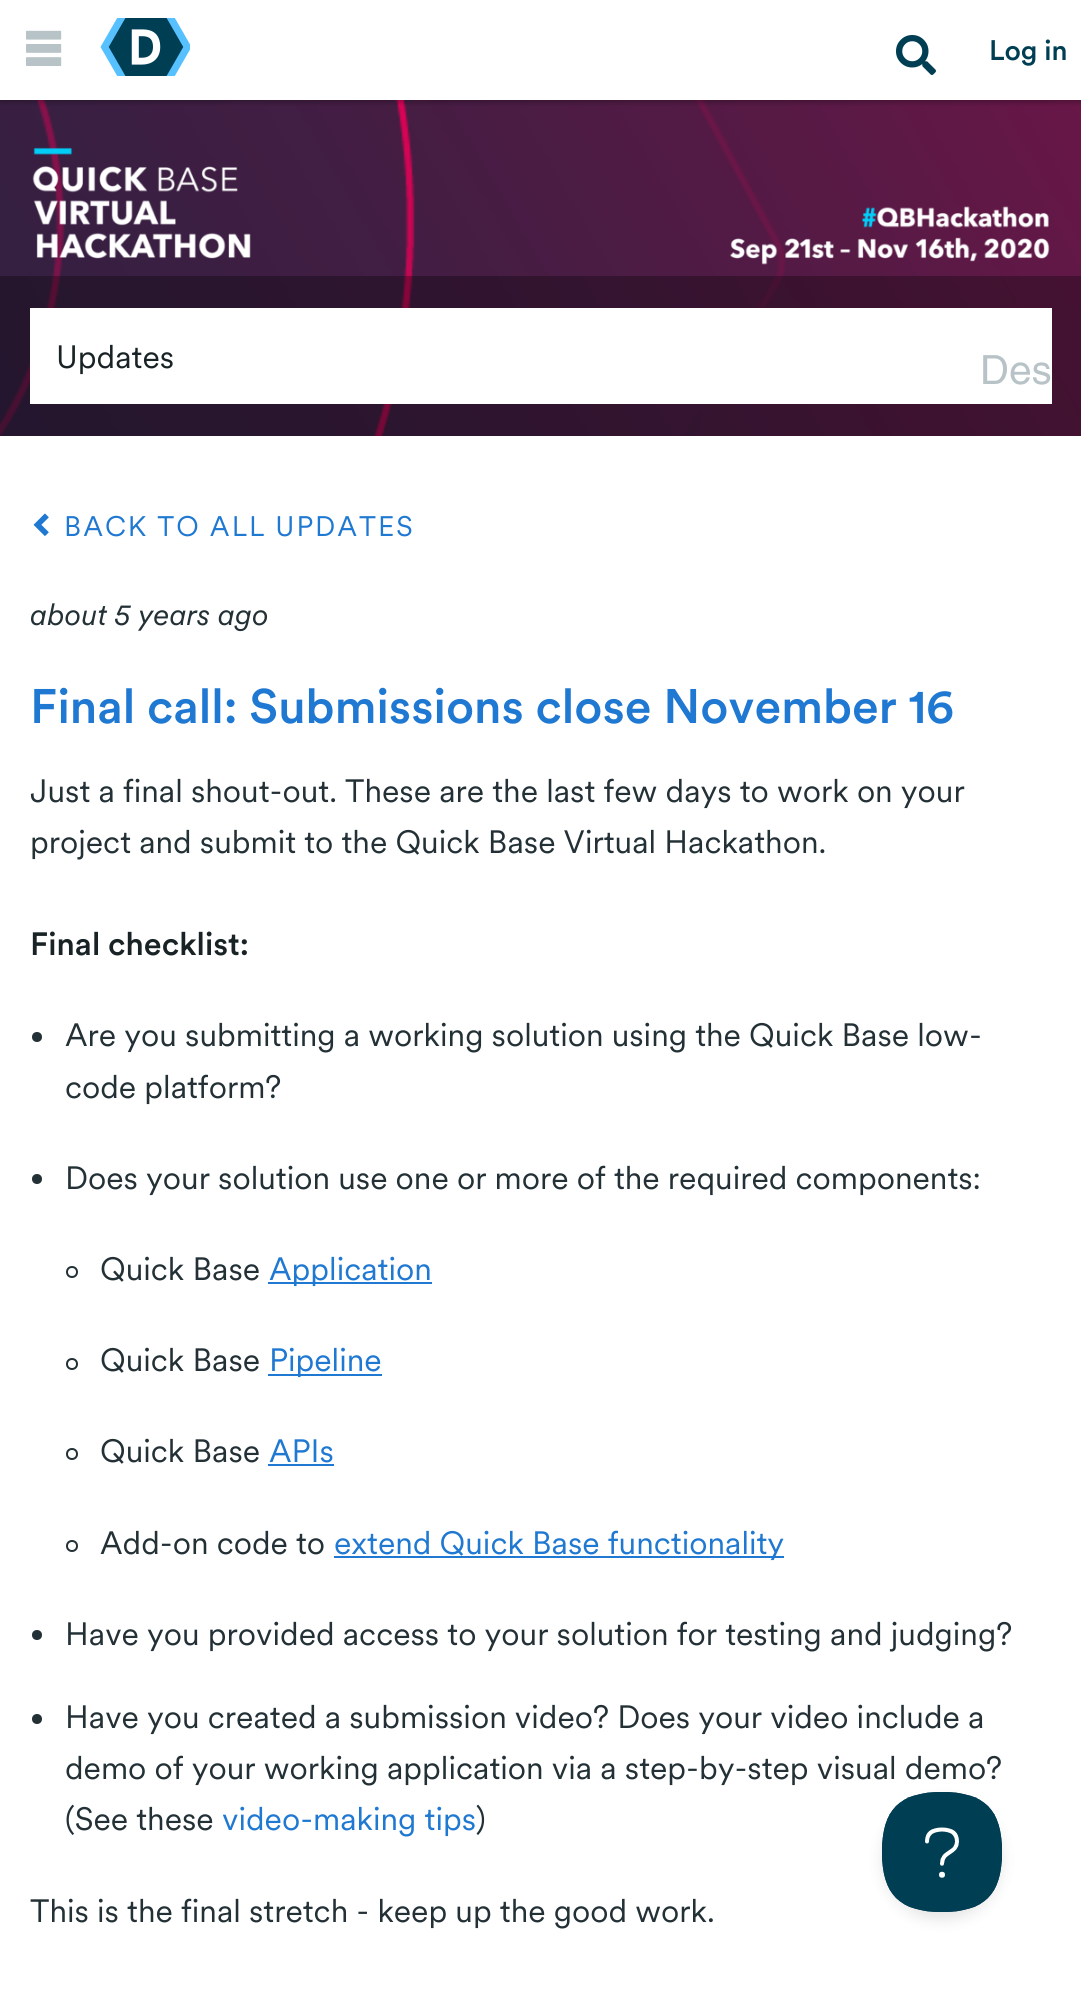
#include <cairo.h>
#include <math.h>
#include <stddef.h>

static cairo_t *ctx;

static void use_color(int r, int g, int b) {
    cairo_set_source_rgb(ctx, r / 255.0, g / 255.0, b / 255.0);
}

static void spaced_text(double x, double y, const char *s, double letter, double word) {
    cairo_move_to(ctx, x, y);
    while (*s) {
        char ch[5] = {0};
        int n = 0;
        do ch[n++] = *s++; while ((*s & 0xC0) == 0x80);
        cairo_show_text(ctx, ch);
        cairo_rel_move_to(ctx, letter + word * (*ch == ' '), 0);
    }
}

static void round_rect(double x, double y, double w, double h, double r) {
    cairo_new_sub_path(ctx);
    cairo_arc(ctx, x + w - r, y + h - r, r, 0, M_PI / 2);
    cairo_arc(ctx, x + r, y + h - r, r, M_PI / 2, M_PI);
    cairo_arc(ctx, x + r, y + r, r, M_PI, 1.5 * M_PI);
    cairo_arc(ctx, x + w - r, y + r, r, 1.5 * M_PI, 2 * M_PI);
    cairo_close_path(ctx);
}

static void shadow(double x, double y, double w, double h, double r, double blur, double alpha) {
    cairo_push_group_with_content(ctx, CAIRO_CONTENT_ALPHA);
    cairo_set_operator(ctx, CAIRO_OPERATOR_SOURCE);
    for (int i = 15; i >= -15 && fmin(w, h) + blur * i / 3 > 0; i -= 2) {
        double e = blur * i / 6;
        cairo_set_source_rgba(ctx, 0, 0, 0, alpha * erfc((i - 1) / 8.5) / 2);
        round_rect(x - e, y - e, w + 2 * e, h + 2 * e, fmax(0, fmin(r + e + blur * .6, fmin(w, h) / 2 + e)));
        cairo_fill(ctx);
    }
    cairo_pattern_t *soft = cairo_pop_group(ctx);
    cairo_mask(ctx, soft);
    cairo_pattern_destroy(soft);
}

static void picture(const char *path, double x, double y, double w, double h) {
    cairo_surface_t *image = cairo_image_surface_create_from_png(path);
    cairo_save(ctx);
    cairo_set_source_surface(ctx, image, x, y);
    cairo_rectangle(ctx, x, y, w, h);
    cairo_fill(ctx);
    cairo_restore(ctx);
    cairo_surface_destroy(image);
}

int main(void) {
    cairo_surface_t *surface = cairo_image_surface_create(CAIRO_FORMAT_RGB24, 1081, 1992);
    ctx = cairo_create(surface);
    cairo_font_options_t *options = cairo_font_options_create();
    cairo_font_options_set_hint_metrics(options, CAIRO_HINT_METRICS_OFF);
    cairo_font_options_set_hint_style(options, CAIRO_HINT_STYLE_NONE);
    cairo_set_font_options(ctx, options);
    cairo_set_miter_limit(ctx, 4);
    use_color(255, 255, 255);
    cairo_paint(ctx);
    picture("img4.png", 0, 100, 1081, 336);
    cairo_save(ctx);
    cairo_rectangle(ctx, 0, 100, 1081, 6);
    cairo_clip(ctx);
    use_color(0, 0, 0);
    shadow(0, 2, 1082, 100, 0, 3, 0.3);
    cairo_restore(ctx);
    picture("img1.png", 26, 30, 36, 36);
    picture("img2.png", 100, 18, 90, 58);
    picture("img3.png", 896, 35, 40, 40);
    cairo_select_font_face(ctx, "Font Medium", CAIRO_FONT_SLANT_NORMAL, CAIRO_FONT_WEIGHT_NORMAL);
    cairo_set_font_size(ctx, 28);
    use_color(0, 62, 84);
    cairo_move_to(ctx, 989, 60);
    cairo_show_text(ctx, "Log in");
    picture("img5.png", 32, 147, 1018, 118);
    cairo_set_source_rgba(ctx, 0, 0, 0, 0.3);
    cairo_rectangle(ctx, 0, 276, 1081, 160);
    cairo_fill(ctx);
    use_color(255, 255, 255);
    cairo_rectangle(ctx, 30, 308, 1022, 96);
    cairo_fill(ctx);
    cairo_select_font_face(ctx, "Font", CAIRO_FONT_SLANT_NORMAL, CAIRO_FONT_WEIGHT_NORMAL);
    cairo_set_font_size(ctx, 32);
    use_color(25, 35, 37);
    cairo_move_to(ctx, 56, 368);
    cairo_show_text(ctx, "Updates");
    picture("img6.png", 983, 355, 68, 30);
    picture("img7.png", 33, 513, 16, 23);
    cairo_set_font_size(ctx, 28);
    use_color(31, 120, 209);
    spaced_text(64, 536, "BACK TO ALL UPDATES", 2, 0);
    cairo_select_font_face(ctx, "Font", CAIRO_FONT_SLANT_ITALIC, CAIRO_FONT_WEIGHT_NORMAL);
    cairo_set_font_size(ctx, 30);
    use_color(35, 49, 54);
    cairo_move_to(ctx, 30, 625);
    cairo_show_text(ctx, "about 5 years ago");
    cairo_select_font_face(ctx, "Font Medium", CAIRO_FONT_SLANT_NORMAL, CAIRO_FONT_WEIGHT_NORMAL);
    cairo_set_font_size(ctx, 48);
    use_color(31, 120, 209);
    cairo_move_to(ctx, 30, 723);
    cairo_show_text(ctx, "Final call: Submissions close November 16");
    cairo_select_font_face(ctx, "Font", CAIRO_FONT_SLANT_NORMAL, CAIRO_FONT_WEIGHT_NORMAL);
    cairo_set_font_size(ctx, 32);
    use_color(35, 49, 54);
    cairo_move_to(ctx, 30, 802);
    cairo_show_text(ctx, "Just a final shout-out. These are the last few days to work on your");
    cairo_move_to(ctx, 30, 853);
    cairo_show_text(ctx, "project and submit to the Quick Base Virtual Hackathon.");
    cairo_select_font_face(ctx, "Font Medium", CAIRO_FONT_SLANT_NORMAL, CAIRO_FONT_WEIGHT_NORMAL);
    use_color(25, 35, 37);
    cairo_move_to(ctx, 30, 955);
    cairo_show_text(ctx, "Final checklist:");
    use_color(35, 49, 54);
    cairo_new_path(ctx);
    cairo_arc(ctx, 37, 1037, 5, 0, 2 * M_PI);
    cairo_fill(ctx);
    cairo_select_font_face(ctx, "Font", CAIRO_FONT_SLANT_NORMAL, CAIRO_FONT_WEIGHT_NORMAL);
    cairo_move_to(ctx, 65, 1046);
    cairo_show_text(ctx, "Are you submitting a working solution using the Quick Base low-");
    cairo_move_to(ctx, 65, 1098);
    cairo_show_text(ctx, "code platform?");
    cairo_new_path(ctx);
    cairo_arc(ctx, 37, 1179, 5, 0, 2 * M_PI);
    cairo_fill(ctx);
    cairo_move_to(ctx, 65, 1189);
    cairo_show_text(ctx, "Does your solution use one or more of the required components:");
    cairo_new_path(ctx);
    cairo_arc(ctx, 72, 1272, 5, 0, 2 * M_PI);
    cairo_stroke(ctx);
    cairo_move_to(ctx, 100, 1280);
    cairo_show_text(ctx, "Quick Base");
    use_color(31, 120, 209);
    cairo_rectangle(ctx, 268, 1282, 164, 2);
    cairo_fill(ctx);
    cairo_move_to(ctx, 269, 1280);
    cairo_show_text(ctx, "Application");
    cairo_new_path(ctx);
    cairo_arc(ctx, 72, 1364, 5, 0, 2 * M_PI);
    use_color(35, 49, 54);
    cairo_stroke(ctx);
    cairo_move_to(ctx, 100, 1371);
    cairo_show_text(ctx, "Quick Base");
    use_color(31, 120, 209);
    cairo_rectangle(ctx, 268, 1374, 114, 2);
    cairo_fill(ctx);
    cairo_move_to(ctx, 269, 1371);
    cairo_show_text(ctx, "Pipeline");
    cairo_new_path(ctx);
    cairo_arc(ctx, 72, 1454, 5, 0, 2 * M_PI);
    use_color(35, 49, 54);
    cairo_stroke(ctx);
    cairo_move_to(ctx, 100, 1462);
    cairo_show_text(ctx, "Quick Base");
    use_color(31, 120, 209);
    cairo_move_to(ctx, 269, 1462);
    cairo_show_text(ctx, "APIs");
    cairo_rectangle(ctx, 268, 1464, 66, 2);
    cairo_fill(ctx);
    cairo_arc(ctx, 72, 1546, 5, 0, 2 * M_PI);
    use_color(35, 49, 54);
    cairo_stroke(ctx);
    cairo_move_to(ctx, 100, 1554);
    cairo_show_text(ctx, "Add-on code to");
    use_color(31, 120, 209);
    cairo_rectangle(ctx, 334, 1556, 450, 2);
    cairo_fill(ctx);
    cairo_move_to(ctx, 334, 1554);
    cairo_show_text(ctx, "extend Quick Base functionality");
    use_color(35, 49, 54);
    cairo_new_path(ctx);
    cairo_arc(ctx, 37, 1635, 5, 0, 2 * M_PI);
    cairo_fill(ctx);
    cairo_move_to(ctx, 65, 1645);
    cairo_show_text(ctx, "Have you provided access to your solution for testing and judging?");
    cairo_new_path(ctx);
    cairo_arc(ctx, 37, 1719, 5, 0, 2 * M_PI);
    cairo_fill(ctx);
    cairo_move_to(ctx, 65, 1728);
    cairo_show_text(ctx, "Have you created a submission video? Does your video include a");
    cairo_move_to(ctx, 65, 1779);
    cairo_show_text(ctx, "demo of your working application via a step-by-step visual demo?");
    cairo_move_to(ctx, 65, 1830);
    cairo_show_text(ctx, "(See these");
    use_color(31, 120, 209);
    cairo_move_to(ctx, 222, 1830);
    cairo_show_text(ctx, "video-making tips");
    use_color(35, 49, 54);
    cairo_move_to(ctx, 476, 1830);
    cairo_show_text(ctx, ")");
    cairo_move_to(ctx, 30, 1922);
    cairo_show_text(ctx, "This is the final stretch - keep up the good work.");
    use_color(0, 0, 0);
    shadow(882, 1800, 120, 120, 60, 7, 0.1);
    picture("img8.png", 882, 1792, 120, 120);
    cairo_surface_write_to_png(surface, "result.png");
    cairo_font_options_destroy(options);
    cairo_destroy(ctx);
    cairo_surface_destroy(surface);
    return 0;
}
